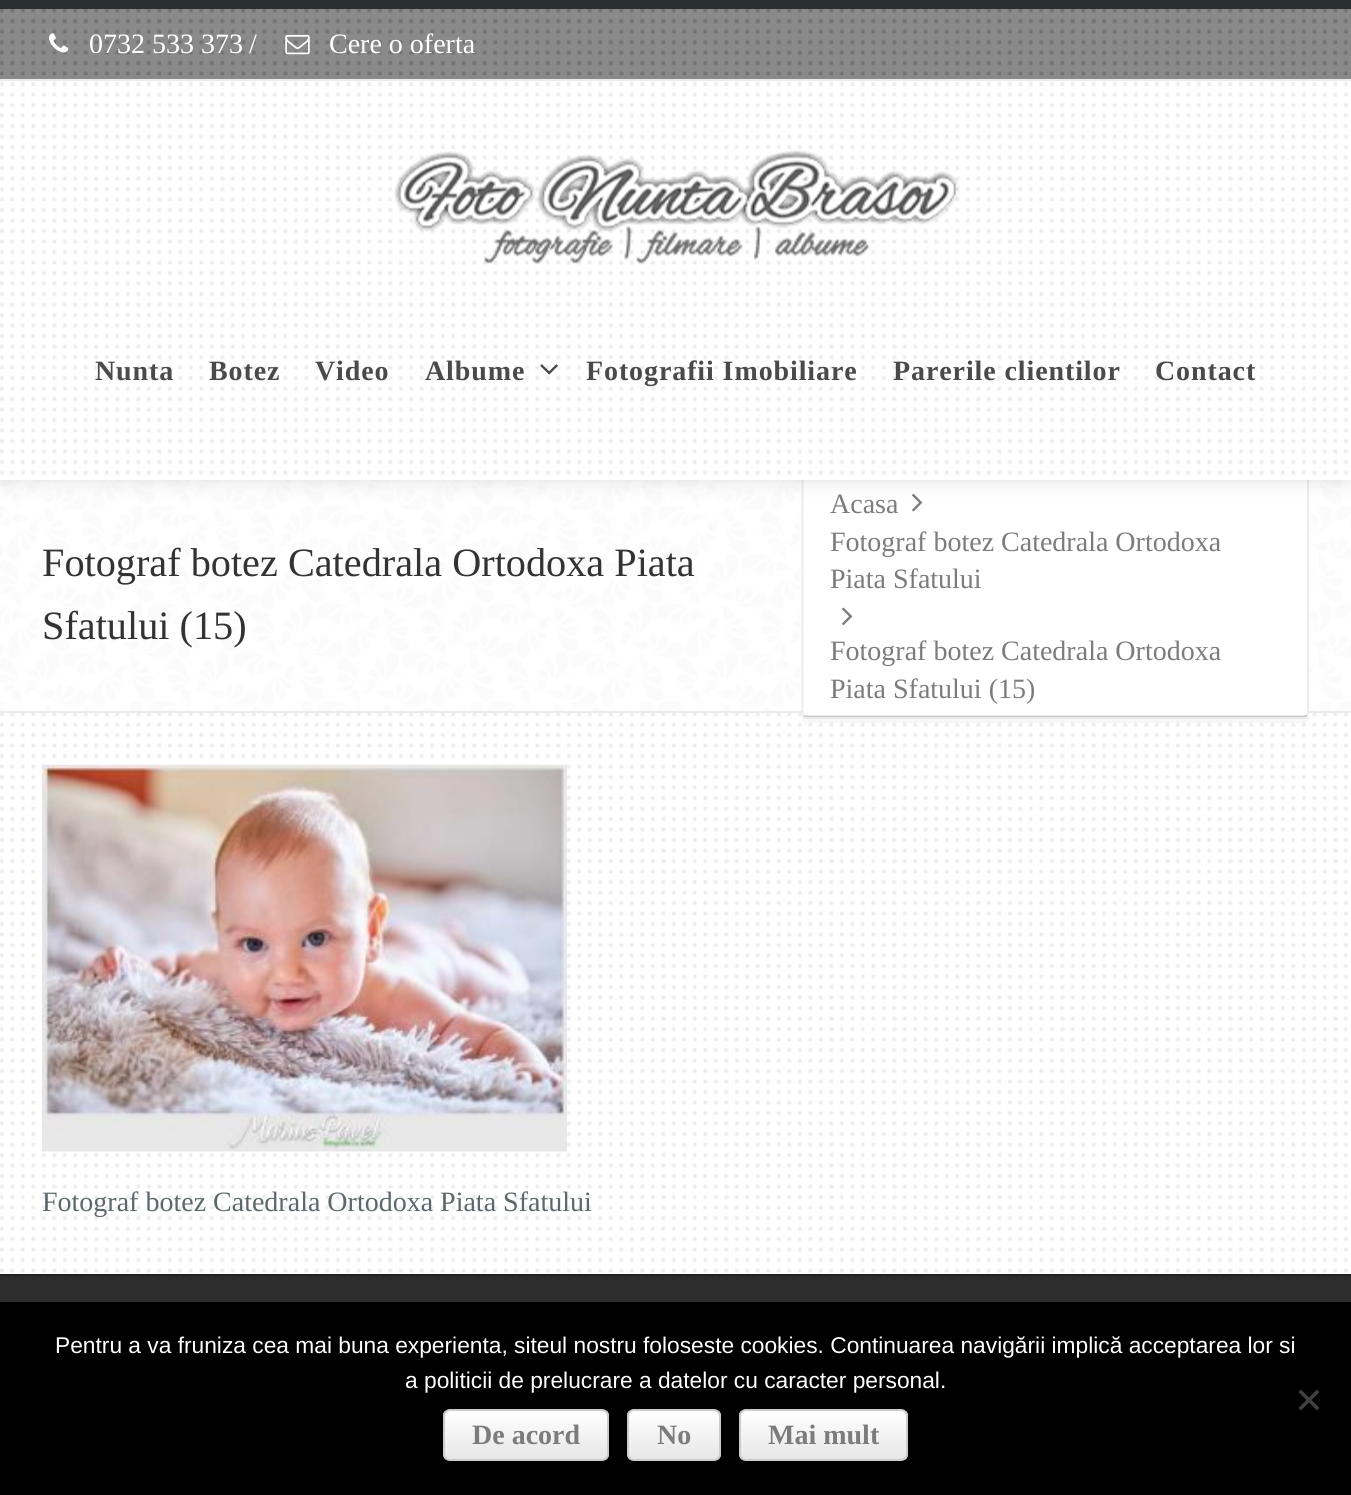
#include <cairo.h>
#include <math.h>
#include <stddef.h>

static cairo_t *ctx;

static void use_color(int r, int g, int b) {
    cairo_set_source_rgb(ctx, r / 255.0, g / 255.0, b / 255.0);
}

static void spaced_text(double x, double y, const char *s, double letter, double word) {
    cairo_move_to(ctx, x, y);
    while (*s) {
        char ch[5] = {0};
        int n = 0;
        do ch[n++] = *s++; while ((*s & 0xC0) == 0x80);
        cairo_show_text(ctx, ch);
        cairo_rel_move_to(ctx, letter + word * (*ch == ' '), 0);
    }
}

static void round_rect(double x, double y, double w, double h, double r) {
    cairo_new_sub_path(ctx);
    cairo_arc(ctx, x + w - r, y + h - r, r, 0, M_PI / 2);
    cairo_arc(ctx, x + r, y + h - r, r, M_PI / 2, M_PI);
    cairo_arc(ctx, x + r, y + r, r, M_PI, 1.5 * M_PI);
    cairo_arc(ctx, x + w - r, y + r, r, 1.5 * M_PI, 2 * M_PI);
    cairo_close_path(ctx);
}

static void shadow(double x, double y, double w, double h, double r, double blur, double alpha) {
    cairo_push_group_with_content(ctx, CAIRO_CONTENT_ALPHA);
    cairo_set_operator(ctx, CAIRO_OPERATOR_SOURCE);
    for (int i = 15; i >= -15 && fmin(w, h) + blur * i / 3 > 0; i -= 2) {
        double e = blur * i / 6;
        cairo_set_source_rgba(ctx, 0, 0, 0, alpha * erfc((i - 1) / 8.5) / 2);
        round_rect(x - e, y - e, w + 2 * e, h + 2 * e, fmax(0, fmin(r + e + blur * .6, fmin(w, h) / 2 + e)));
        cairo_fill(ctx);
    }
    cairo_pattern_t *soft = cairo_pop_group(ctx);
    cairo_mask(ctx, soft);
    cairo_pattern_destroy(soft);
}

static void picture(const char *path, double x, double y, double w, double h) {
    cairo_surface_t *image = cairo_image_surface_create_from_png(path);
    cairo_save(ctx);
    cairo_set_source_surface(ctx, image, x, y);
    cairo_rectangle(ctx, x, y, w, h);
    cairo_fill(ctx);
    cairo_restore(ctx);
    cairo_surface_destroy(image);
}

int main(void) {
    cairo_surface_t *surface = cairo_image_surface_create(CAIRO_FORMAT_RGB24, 1351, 1495);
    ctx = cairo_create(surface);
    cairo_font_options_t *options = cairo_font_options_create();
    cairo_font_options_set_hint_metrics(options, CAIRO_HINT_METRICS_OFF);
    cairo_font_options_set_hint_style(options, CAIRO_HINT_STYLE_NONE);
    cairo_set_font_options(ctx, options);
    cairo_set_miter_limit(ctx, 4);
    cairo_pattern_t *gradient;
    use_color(255, 255, 255);
    cairo_paint(ctx);
    picture("img1.png", 0, 713, 1348, 561);
    use_color(42, 48, 48);
    cairo_rectangle(ctx, 0, 0, 1351, 9);
    cairo_fill(ctx);
    picture("img8.png", 0, 480, 1351, 231);
    use_color(235, 235, 235);
    cairo_rectangle(ctx, 0, 711, 1351, 2);
    cairo_fill(ctx);
    use_color(237, 237, 237);
    cairo_new_path(ctx);
    cairo_move_to(ctx, 802, 715);
    cairo_curve_to(ctx, 802, 717, 804, 719, 807, 719);
    cairo_line_to(ctx, 1304, 719);
    cairo_curve_to(ctx, 1308, 719, 1309, 716, 1309, 712);
    cairo_curve_to(ctx, 1309, 715, 1307, 718, 1304, 718);
    cairo_line_to(ctx, 807, 718);
    cairo_curve_to(ctx, 805, 718, 803, 716, 802, 715);
    cairo_close_path(ctx);
    cairo_fill(ctx);
    cairo_set_source_rgba(ctx, 0, 0, 0, 0.03);
    cairo_new_path(ctx);
    cairo_move_to(ctx, 802, 714);
    cairo_line_to(ctx, 802, 718);
    cairo_curve_to(ctx, 802, 721, 804, 723, 807, 723);
    cairo_line_to(ctx, 1304, 723);
    cairo_curve_to(ctx, 1307, 723, 1309, 721, 1309, 718);
    cairo_line_to(ctx, 1309, 712);
    cairo_curve_to(ctx, 1309, 715, 1307, 718, 1304, 718);
    cairo_line_to(ctx, 807, 718);
    cairo_curve_to(ctx, 805, 718, 803, 716, 802, 714);
    cairo_close_path(ctx);
    cairo_fill(ctx);
    use_color(255, 255, 255);
    round_rect(802, 473, 507, 245, 5);
    cairo_fill(ctx);
    cairo_new_path(ctx);
    cairo_move_to(ctx, 1307, 715.5);
    cairo_curve_to(ctx, 1306, 716, 1305, 716.5, 1304, 716.5);
    cairo_line_to(ctx, 807, 716.5);
    cairo_curve_to(ctx, 805.5, 716.5, 804.5, 716, 803.5, 715.5);
    use_color(199, 199, 199);
    cairo_set_line_width(ctx, 1.8);
    cairo_stroke(ctx);
    cairo_new_path(ctx);
    cairo_move_to(ctx, 803.5, 715.5);
    cairo_curve_to(ctx, 803, 714.5, 802.5, 713.5, 802.5, 712);
    cairo_line_to(ctx, 802.5, 478);
    cairo_curve_to(ctx, 802.5, 476.5, 803, 475.5, 803.5, 474.5);
    cairo_curve_to(ctx, 804.5, 474, 805.5, 473.5, 807, 473.5);
    cairo_line_to(ctx, 1304, 473.5);
    cairo_curve_to(ctx, 1305, 473.5, 1306, 474, 1307, 474.5);
    cairo_curve_to(ctx, 1307.5, 475.5, 1308, 476.5, 1308, 478);
    cairo_line_to(ctx, 1308, 712);
    cairo_curve_to(ctx, 1308, 713.5, 1307.5, 714.5, 1307, 715.5);
    use_color(235, 235, 235);
    cairo_stroke(ctx);
    picture("img9.png", 912, 493, 11, 19);
    cairo_save(ctx);
    cairo_rectangle(ctx, 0, 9, 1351, 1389);
    cairo_clip(ctx);
    use_color(0, 0, 0);
    shadow(0, 12, 1351, 471, 0, 9, 0.1);
    cairo_restore(ctx);
    cairo_rectangle(ctx, 0, 79, 1351, 2);
    cairo_fill(ctx);
    picture("img2.png", 0, 9, 1351, 70);
    picture("img3.png", 49, 33, 20, 20);
    cairo_select_font_face(ctx, "Liberation Serif", CAIRO_FONT_SLANT_NORMAL, CAIRO_FONT_WEIGHT_NORMAL);
    cairo_set_font_size(ctx, 28);
    use_color(255, 255, 255);
    cairo_move_to(ctx, 89, 53);
    cairo_show_text(ctx, "0732 533 373");
    cairo_move_to(ctx, 249, 53);
    cairo_show_text(ctx, "/");
    picture("img4.png", 285, 35, 25, 20);
    cairo_move_to(ctx, 329, 53);
    cairo_show_text(ctx, "Cere o oferta");
    cairo_rectangle(ctx, 0, 81, 1351, 399);
    cairo_fill(ctx);
    picture("img5.png", 0, 81, 1348, 394);
    picture("img6.png", 394, 150, 565, 114);
    cairo_select_font_face(ctx, "Liberation Serif", CAIRO_FONT_SLANT_NORMAL, CAIRO_FONT_WEIGHT_BOLD);
    use_color(74, 74, 74);
    spaced_text(95, 380, "Nunta", 0.9, 0);
    spaced_text(209, 380, "Botez", 0.9, 0);
    spaced_text(315, 380, "Video", 0.9, 0);
    spaced_text(425, 380, "Albume", 0.9, 0);
    picture("img7.png", 540, 364, 18, 11);
    spaced_text(586, 380, "Fotografii Imobiliare", 0.9, 0);
    spaced_text(893, 380, "Parerile clientilor", 0.9, 0);
    spaced_text(1155, 380, "Contact", 0.9, 0);
    cairo_select_font_face(ctx, "Liberation Serif", CAIRO_FONT_SLANT_NORMAL, CAIRO_FONT_WEIGHT_NORMAL);
    cairo_set_font_size(ctx, 40.25);
    use_color(51, 51, 51);
    cairo_move_to(ctx, 42, 576);
    cairo_show_text(ctx, "Fotograf botez Catedrala Ortodoxa Piata");
    cairo_move_to(ctx, 42, 639);
    cairo_show_text(ctx, "Sfatului (15)");
    cairo_set_font_size(ctx, 28);
    use_color(124, 124, 124);
    cairo_move_to(ctx, 830, 513);
    cairo_show_text(ctx, "Acasa");
    cairo_move_to(ctx, 830, 551);
    cairo_show_text(ctx, "Fotograf botez Catedrala Ortodoxa");
    cairo_move_to(ctx, 830, 588);
    cairo_show_text(ctx, "Piata Sfatului");
    picture("img10.png", 842, 607, 11, 19);
    cairo_move_to(ctx, 830, 660);
    cairo_show_text(ctx, "Fotograf botez Catedrala Ortodoxa");
    cairo_move_to(ctx, 830, 698);
    cairo_show_text(ctx, "Piata Sfatului (15)");
    picture("img11.png", 42, 764, 525, 388);
    use_color(92, 104, 105);
    cairo_move_to(ctx, 42, 1211);
    cairo_show_text(ctx, "Fotograf botez Catedrala Ortodoxa Piata Sfatului");
    use_color(45, 45, 45);
    cairo_rectangle(ctx, 0, 1276, 1351, 26);
    cairo_fill(ctx);
    use_color(34, 34, 34);
    cairo_rectangle(ctx, 0, 1274, 1351, 2);
    cairo_fill(ctx);
    use_color(0, 0, 0);
    cairo_rectangle(ctx, 0, 1302, 1351, 193);
    cairo_fill(ctx);
    cairo_select_font_face(ctx, "Liberation Sans", CAIRO_FONT_SLANT_NORMAL, CAIRO_FONT_WEIGHT_NORMAL);
    cairo_set_font_size(ctx, 22.75);
    use_color(255, 255, 255);
    cairo_move_to(ctx, 55, 1353);
    cairo_show_text(ctx, "Pentru a va fruniza cea mai buna experienta, siteul nostru foloseste cookies. Continuarea navigării implică acceptarea lor si");
    cairo_move_to(ctx, 405, 1388);
    cairo_show_text(ctx, "a politicii de prelucrare a datelor cu caracter personal.");
    use_color(64, 64, 64);
    cairo_new_path(ctx);
    cairo_move_to(ctx, 1317, 1389.5);
    cairo_line_to(ctx, 1319.5, 1392);
    cairo_line_to(ctx, 1301, 1410.5);
    cairo_line_to(ctx, 1298.5, 1408);
    cairo_close_path(ctx);
    cairo_fill(ctx);
    cairo_new_path(ctx);
    cairo_move_to(ctx, 1298.5, 1392);
    cairo_line_to(ctx, 1301, 1389.5);
    cairo_line_to(ctx, 1319.5, 1408);
    cairo_line_to(ctx, 1317, 1410.5);
    cairo_close_path(ctx);
    cairo_fill(ctx);
    cairo_save(ctx);
    round_rect(443, 1409, 166, 52, 7);
    cairo_clip(ctx);
    gradient = cairo_pattern_create_linear(526, 1411, 526, 1460);
    cairo_pattern_add_color_stop_rgba(gradient, 0, 1, 1, 1, 1);
    cairo_pattern_add_color_stop_rgba(gradient, 1, 0.902, 0.902, 0.902, 1);
    cairo_set_source(ctx, gradient);
    cairo_pattern_destroy(gradient);
    cairo_rectangle(ctx, 443, 1411, 166, 49);
    cairo_fill(ctx);
    cairo_restore(ctx);
    round_rect(444, 1410, 164, 50, 6);
    use_color(204, 204, 204);
    cairo_set_line_width(ctx, 2);
    cairo_stroke(ctx);
    cairo_select_font_face(ctx, "Liberation Serif", CAIRO_FONT_SLANT_NORMAL, CAIRO_FONT_WEIGHT_BOLD);
    cairo_set_font_size(ctx, 28);
    use_color(124, 124, 124);
    cairo_move_to(ctx, 472, 1444);
    cairo_show_text(ctx, "De acord");
    cairo_save(ctx);
    round_rect(627, 1409, 94, 52, 7);
    cairo_clip(ctx);
    gradient = cairo_pattern_create_linear(674, 1411, 674, 1460);
    cairo_pattern_add_color_stop_rgba(gradient, 0, 1, 1, 1, 1);
    cairo_pattern_add_color_stop_rgba(gradient, 1, 0.902, 0.902, 0.902, 1);
    cairo_set_source(ctx, gradient);
    cairo_pattern_destroy(gradient);
    cairo_rectangle(ctx, 627, 1411, 94, 49);
    cairo_fill(ctx);
    cairo_restore(ctx);
    round_rect(628, 1410, 92, 50, 6);
    use_color(204, 204, 204);
    cairo_stroke(ctx);
    use_color(124, 124, 124);
    cairo_move_to(ctx, 657, 1444);
    cairo_show_text(ctx, "No");
    cairo_save(ctx);
    round_rect(739, 1409, 169, 52, 7);
    cairo_clip(ctx);
    gradient = cairo_pattern_create_linear(823, 1411, 823, 1460);
    cairo_pattern_add_color_stop_rgba(gradient, 0, 1, 1, 1, 1);
    cairo_pattern_add_color_stop_rgba(gradient, 1, 0.902, 0.902, 0.902, 1);
    cairo_set_source(ctx, gradient);
    cairo_pattern_destroy(gradient);
    cairo_rectangle(ctx, 739, 1411, 169, 49);
    cairo_fill(ctx);
    cairo_restore(ctx);
    round_rect(740, 1410, 167, 50, 6);
    use_color(204, 204, 204);
    cairo_stroke(ctx);
    use_color(124, 124, 124);
    cairo_move_to(ctx, 768, 1444);
    cairo_show_text(ctx, "Mai mult");
    cairo_surface_write_to_png(surface, "result.png");
    cairo_font_options_destroy(options);
    cairo_destroy(ctx);
    cairo_surface_destroy(surface);
    return 0;
}
